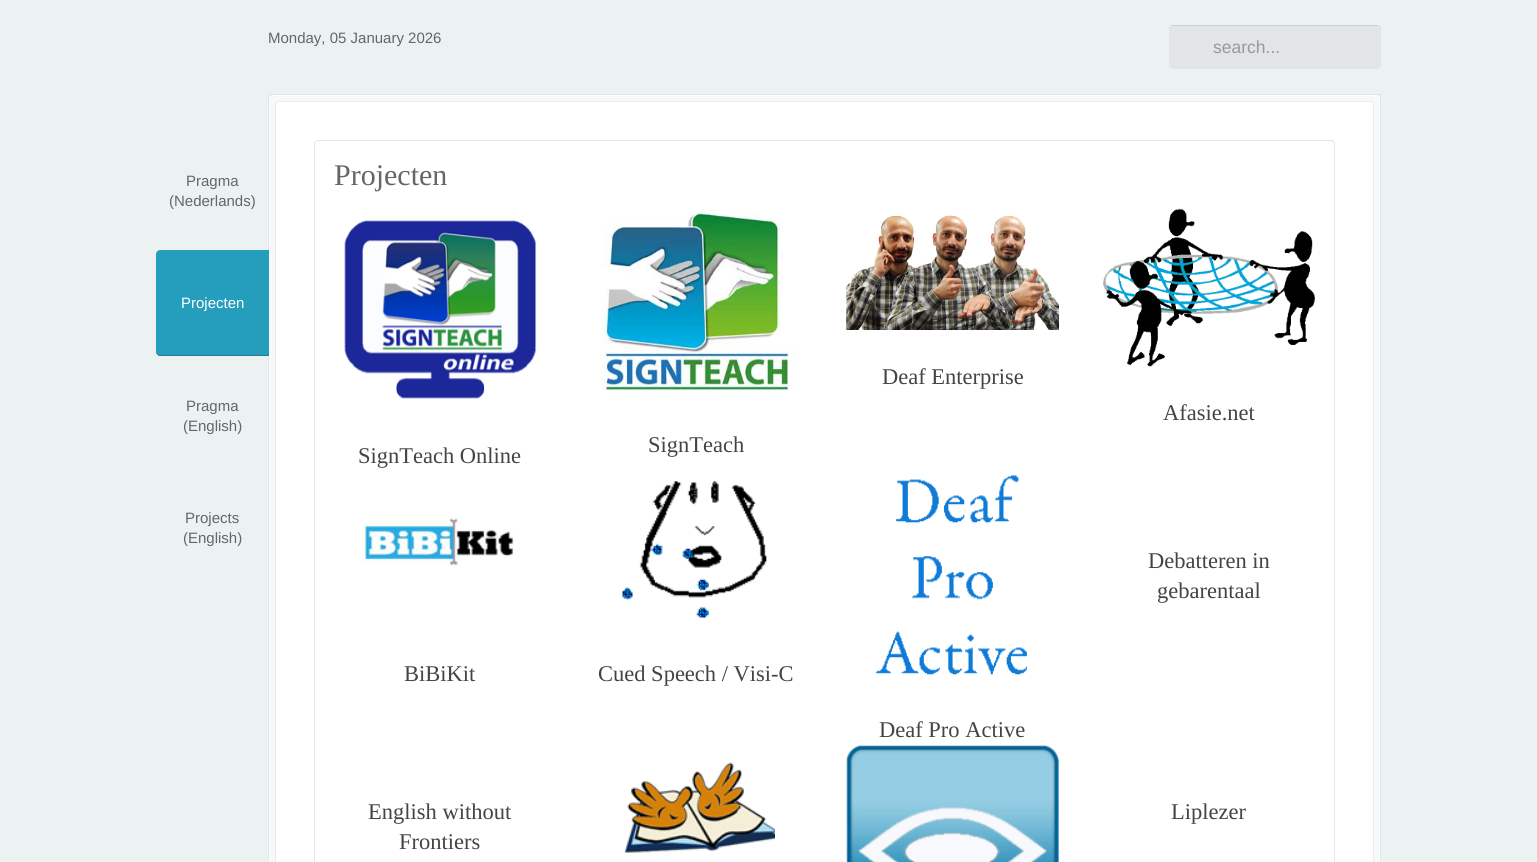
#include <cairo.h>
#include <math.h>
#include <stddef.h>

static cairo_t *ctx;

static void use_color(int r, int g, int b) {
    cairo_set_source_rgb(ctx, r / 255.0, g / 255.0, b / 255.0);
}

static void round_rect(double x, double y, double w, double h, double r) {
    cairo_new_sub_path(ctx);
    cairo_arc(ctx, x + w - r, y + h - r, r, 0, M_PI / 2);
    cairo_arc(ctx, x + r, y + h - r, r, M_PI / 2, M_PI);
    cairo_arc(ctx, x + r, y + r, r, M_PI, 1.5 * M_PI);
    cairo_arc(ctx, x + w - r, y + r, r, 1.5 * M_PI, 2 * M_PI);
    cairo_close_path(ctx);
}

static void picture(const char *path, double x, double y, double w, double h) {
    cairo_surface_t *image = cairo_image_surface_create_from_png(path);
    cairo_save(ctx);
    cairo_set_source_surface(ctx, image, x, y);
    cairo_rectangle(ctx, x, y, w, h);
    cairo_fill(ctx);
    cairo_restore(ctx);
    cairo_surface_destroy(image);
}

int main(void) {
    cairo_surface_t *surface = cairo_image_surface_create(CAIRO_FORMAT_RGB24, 1537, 862);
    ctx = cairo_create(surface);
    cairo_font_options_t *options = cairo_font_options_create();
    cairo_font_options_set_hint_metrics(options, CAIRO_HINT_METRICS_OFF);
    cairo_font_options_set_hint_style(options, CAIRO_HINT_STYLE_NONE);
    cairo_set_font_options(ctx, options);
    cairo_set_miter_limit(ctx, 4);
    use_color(236, 241, 242);
    cairo_paint(ctx);
    cairo_select_font_face(ctx, "Liberation Sans", CAIRO_FONT_SLANT_NORMAL, CAIRO_FONT_WEIGHT_NORMAL);
    cairo_set_font_size(ctx, 15);
    use_color(102, 102, 102);
    cairo_move_to(ctx, 268, 43);
    cairo_show_text(ctx, "Monday, 05 January 2026");
    use_color(225, 229, 229);
    round_rect(1169, 25, 212, 44, 4);
    cairo_fill(ctx);
    cairo_set_source_rgba(ctx, 0, 0, 0, 0.1);
    cairo_new_path(ctx);
    cairo_move_to(ctx, 1172, 26);
    cairo_line_to(ctx, 1379, 26);
    cairo_line_to(ctx, 1380, 27);
    cairo_line_to(ctx, 1381, 30);
    cairo_line_to(ctx, 1381, 29);
    cairo_curve_to(ctx, 1381, 27, 1379, 25, 1377, 25);
    cairo_line_to(ctx, 1173, 25);
    cairo_curve_to(ctx, 1171, 25, 1169, 27, 1169, 29);
    cairo_line_to(ctx, 1169, 30);
    cairo_curve_to(ctx, 1169, 28, 1170, 26, 1172, 26);
    cairo_close_path(ctx);
    cairo_fill(ctx);
    cairo_set_font_size(ctx, 17.5);
    use_color(153, 153, 153);
    cairo_move_to(ctx, 1213, 53);
    cairo_show_text(ctx, "search...");
    cairo_set_font_size(ctx, 15);
    use_color(102, 102, 102);
    cairo_move_to(ctx, 186, 186);
    cairo_show_text(ctx, "Pragma");
    cairo_move_to(ctx, 169, 206);
    cairo_show_text(ctx, "(Nederlands)");
    use_color(247, 248, 248);
    round_rect(269, 95, 1111, 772, 5);
    cairo_fill(ctx);
    round_rect(269.5, 95.5, 1110, 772, 4.5);
    cairo_set_source_rgba(ctx, 1, 1, 1, 0.6);
    cairo_set_line_width(ctx, 1);
    cairo_stroke(ctx);
    cairo_set_source_rgba(ctx, 1, 1, 1, 0.9);
    cairo_new_path(ctx);
    cairo_move_to(ctx, 274, 96);
    cairo_line_to(ctx, 1375, 96);
    cairo_curve_to(ctx, 1378, 96, 1380, 98, 1380, 101);
    cairo_curve_to(ctx, 1380, 98, 1378, 95, 1375, 95);
    cairo_line_to(ctx, 274, 95);
    cairo_curve_to(ctx, 271, 95, 269, 98, 269, 101);
    cairo_curve_to(ctx, 269, 98, 271, 96, 274, 96);
    cairo_close_path(ctx);
    cairo_fill(ctx);
    cairo_rectangle(ctx, 268.5, 94.5, 1112, 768);
    cairo_set_source_rgba(ctx, 0, 0, 0, 0.05);
    cairo_stroke(ctx);
    use_color(37, 157, 188);
    cairo_new_path(ctx);
    cairo_move_to(ctx, 160, 250);
    cairo_line_to(ctx, 269, 250);
    cairo_line_to(ctx, 269, 356);
    cairo_line_to(ctx, 160, 356);
    cairo_curve_to(ctx, 158, 356, 156, 354, 156, 352);
    cairo_line_to(ctx, 156, 254);
    cairo_curve_to(ctx, 156, 252, 158, 250, 160, 250);
    cairo_close_path(ctx);
    cairo_fill(ctx);
    cairo_set_source_rgba(ctx, 0, 0, 0, 0.2);
    cairo_new_path(ctx);
    cairo_move_to(ctx, 156, 351);
    cairo_line_to(ctx, 156, 352);
    cairo_curve_to(ctx, 156, 354, 158, 356, 160, 356);
    cairo_line_to(ctx, 269, 356);
    cairo_line_to(ctx, 269, 355);
    cairo_line_to(ctx, 160, 355);
    cairo_curve_to(ctx, 158, 355, 156, 353, 156, 351);
    cairo_close_path(ctx);
    cairo_fill(ctx);
    use_color(255, 255, 255);
    cairo_move_to(ctx, 181, 308);
    cairo_show_text(ctx, "Projecten");
    use_color(102, 102, 102);
    cairo_move_to(ctx, 186, 411);
    cairo_show_text(ctx, "Pragma");
    cairo_move_to(ctx, 183, 431);
    cairo_show_text(ctx, "(English)");
    cairo_move_to(ctx, 185, 523);
    cairo_show_text(ctx, "Projects");
    cairo_move_to(ctx, 183, 543);
    cairo_show_text(ctx, "(English)");
    use_color(255, 255, 255);
    round_rect(275, 101, 1099, 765, 4);
    cairo_fill(ctx);
    round_rect(275.5, 101.5, 1098, 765, 3.5);
    cairo_set_source_rgba(ctx, 0, 0, 0, 0.08);
    cairo_stroke(ctx);
    round_rect(314.5, 140.5, 1020, 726, 3.5);
    use_color(230, 230, 230);
    cairo_stroke(ctx);
    cairo_select_font_face(ctx, "Liberation Serif", CAIRO_FONT_SLANT_NORMAL, CAIRO_FONT_WEIGHT_NORMAL);
    cairo_set_font_size(ctx, 30);
    use_color(102, 102, 102);
    cairo_move_to(ctx, 334, 185);
    cairo_show_text(ctx, "Projecten");
    picture("img1.png", 846, 215, 213, 115);
    cairo_set_font_size(ctx, 22.5);
    use_color(68, 68, 68);
    cairo_move_to(ctx, 882, 384);
    cairo_show_text(ctx, "Deaf Enterprise");
    picture("img2.png", 1102, 208, 213, 159);
    cairo_move_to(ctx, 1163, 420);
    cairo_show_text(ctx, "Afasie.net");
    picture("img3.png", 344, 220, 193, 179);
    cairo_move_to(ctx, 358, 463);
    cairo_show_text(ctx, "SignTeach Online");
    picture("img4.png", 601, 209, 193, 182);
    cairo_move_to(ctx, 648, 452);
    cairo_show_text(ctx, "SignTeach");
    cairo_move_to(ctx, 1148, 568);
    cairo_show_text(ctx, "Debatteren in");
    cairo_move_to(ctx, 1157, 598);
    cairo_show_text(ctx, "gebarentaal");
    picture("img5.png", 363, 518, 151, 48);
    cairo_move_to(ctx, 404, 681);
    cairo_show_text(ctx, "BiBiKit");
    picture("img6.png", 622, 481, 145, 137);
    cairo_move_to(ctx, 598, 681);
    cairo_show_text(ctx, "Cued Speech / Visi-C");
    picture("img7.png", 876, 475, 151, 201);
    cairo_move_to(ctx, 879, 737);
    cairo_show_text(ctx, "Deaf Pro Active");
    cairo_move_to(ctx, 368, 819);
    cairo_show_text(ctx, "English without");
    cairo_move_to(ctx, 399, 849);
    cairo_show_text(ctx, "Frontiers");
    picture("img8.png", 624, 762, 151, 91);
    picture("img9.png", 846, 745, 213, 117);
    cairo_move_to(ctx, 1171, 819);
    cairo_show_text(ctx, "Liplezer");
    cairo_surface_write_to_png(surface, "result.png");
    cairo_font_options_destroy(options);
    cairo_destroy(ctx);
    cairo_surface_destroy(surface);
    return 0;
}
